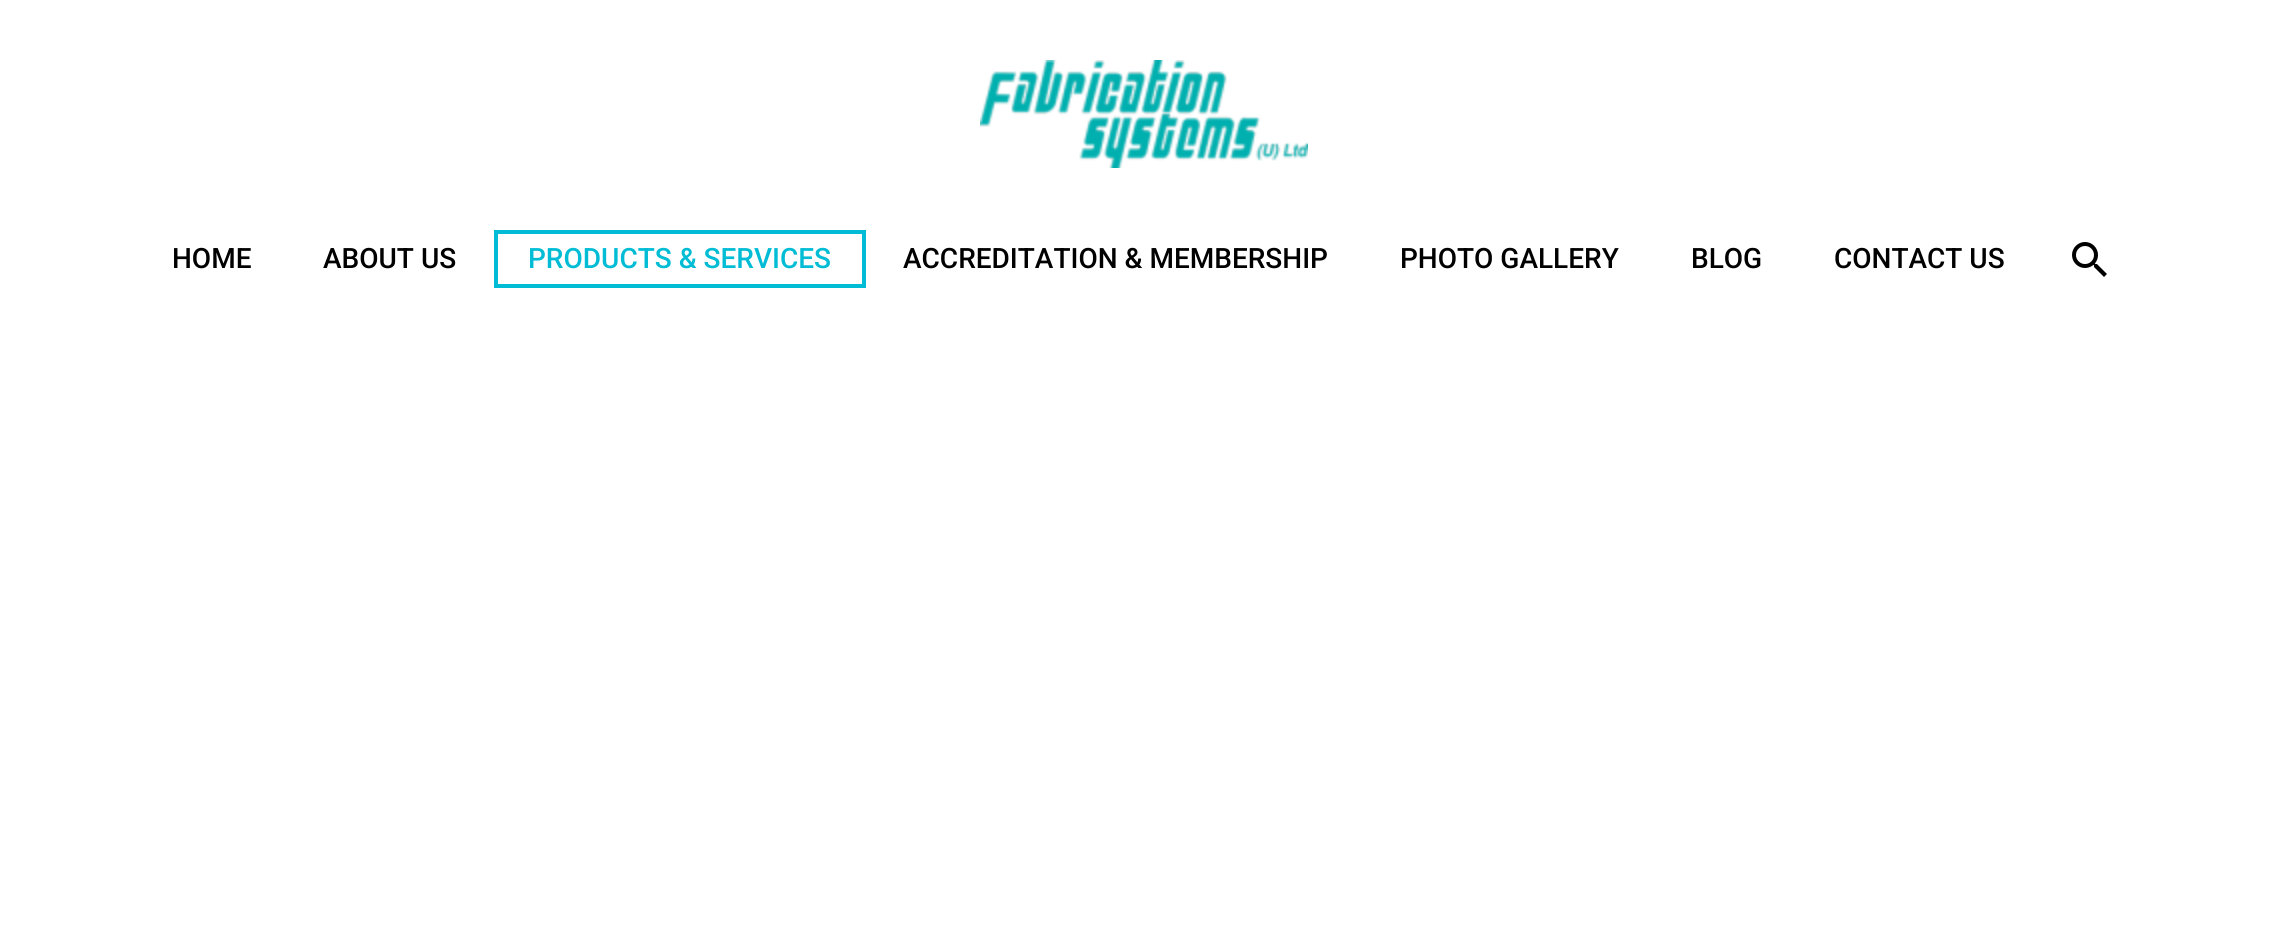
#include <cairo.h>
#include <math.h>
#include <stddef.h>

static cairo_t *ctx;

static void use_color(int r, int g, int b) {
    cairo_set_source_rgb(ctx, r / 255.0, g / 255.0, b / 255.0);
}

static void picture(const char *path, double x, double y, double w, double h) {
    cairo_surface_t *image = cairo_image_surface_create_from_png(path);
    cairo_save(ctx);
    cairo_set_source_surface(ctx, image, x, y);
    cairo_rectangle(ctx, x, y, w, h);
    cairo_fill(ctx);
    cairo_restore(ctx);
    cairo_surface_destroy(image);
}

int main(void) {
    cairo_surface_t *surface = cairo_image_surface_create(CAIRO_FORMAT_RGB24, 2288, 931);
    ctx = cairo_create(surface);
    cairo_font_options_t *options = cairo_font_options_create();
    cairo_font_options_set_hint_metrics(options, CAIRO_HINT_METRICS_OFF);
    cairo_font_options_set_hint_style(options, CAIRO_HINT_STYLE_NONE);
    cairo_set_font_options(ctx, options);
    cairo_set_miter_limit(ctx, 4);
    use_color(255, 255, 255);
    cairo_paint(ctx);
    picture("img1.png", 980, 60, 328, 108);
    cairo_select_font_face(ctx, "Roboto Medium", CAIRO_FONT_SLANT_NORMAL, CAIRO_FONT_WEIGHT_NORMAL);
    cairo_set_font_size(ctx, 28);
    use_color(0, 0, 0);
    cairo_move_to(ctx, 172, 268);
    cairo_show_text(ctx, "HOME");
    cairo_move_to(ctx, 323, 268);
    cairo_show_text(ctx, "ABOUT US");
    cairo_rectangle(ctx, 496, 232, 368, 54);
    use_color(0, 188, 212);
    cairo_set_line_width(ctx, 4);
    cairo_stroke(ctx);
    cairo_move_to(ctx, 528, 268);
    cairo_show_text(ctx, "PRODUCTS & SERVICES");
    use_color(0, 0, 0);
    cairo_move_to(ctx, 903, 268);
    cairo_show_text(ctx, "ACCREDITATION & MEMBERSHIP");
    cairo_move_to(ctx, 1400, 268);
    cairo_show_text(ctx, "PHOTO GALLERY");
    cairo_move_to(ctx, 1691, 268);
    cairo_show_text(ctx, "BLOG");
    cairo_move_to(ctx, 1834, 268);
    cairo_show_text(ctx, "CONTACT US");
    picture("img2.png", 2072, 242, 35, 35);
    cairo_surface_write_to_png(surface, "result.png");
    cairo_font_options_destroy(options);
    cairo_destroy(ctx);
    cairo_surface_destroy(surface);
    return 0;
}
